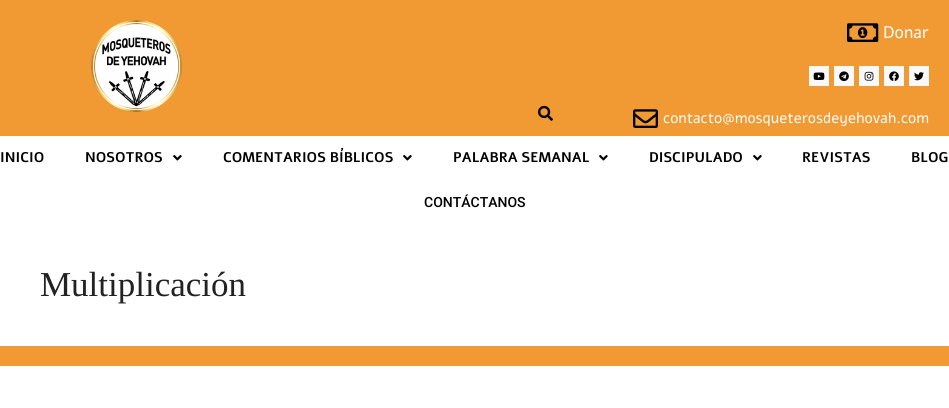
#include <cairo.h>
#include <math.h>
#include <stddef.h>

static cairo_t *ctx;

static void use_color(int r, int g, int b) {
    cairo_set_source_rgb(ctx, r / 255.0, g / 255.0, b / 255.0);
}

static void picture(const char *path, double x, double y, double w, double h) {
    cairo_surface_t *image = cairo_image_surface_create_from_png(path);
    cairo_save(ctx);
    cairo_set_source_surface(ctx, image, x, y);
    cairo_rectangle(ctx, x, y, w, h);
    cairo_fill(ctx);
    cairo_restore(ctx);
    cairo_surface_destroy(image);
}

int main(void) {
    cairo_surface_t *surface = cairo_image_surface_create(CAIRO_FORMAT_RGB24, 949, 408);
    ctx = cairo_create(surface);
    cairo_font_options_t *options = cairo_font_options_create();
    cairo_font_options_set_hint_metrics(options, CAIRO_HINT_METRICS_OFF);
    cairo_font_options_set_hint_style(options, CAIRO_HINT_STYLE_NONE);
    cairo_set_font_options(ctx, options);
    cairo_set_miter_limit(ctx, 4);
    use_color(241, 153, 51);
    cairo_paint(ctx);
    picture("img1.png", 91, 20, 91, 92);
    picture("img2.png", 538, 105, 15, 16);
    picture("img3.png", 847, 23, 32, 19);
    cairo_select_font_face(ctx, "Alef", CAIRO_FONT_SLANT_NORMAL, CAIRO_FONT_WEIGHT_NORMAL);
    cairo_set_font_size(ctx, 17);
    use_color(255, 255, 255);
    cairo_move_to(ctx, 883, 38);
    cairo_show_text(ctx, "Donar");
    use_color(249, 249, 249);
    cairo_rectangle(ctx, 809, 66, 20, 20);
    cairo_fill(ctx);
    picture("img4.png", 813, 72, 12, 8);
    cairo_rectangle(ctx, 834, 66, 20, 20);
    cairo_fill(ctx);
    picture("img5.png", 839, 71, 10, 11);
    cairo_rectangle(ctx, 859, 66, 20, 20);
    cairo_fill(ctx);
    picture("img6.png", 864, 71, 10, 10);
    cairo_rectangle(ctx, 884, 66, 20, 20);
    cairo_fill(ctx);
    picture("img7.png", 889, 71, 10, 10);
    cairo_rectangle(ctx, 909, 66, 20, 20);
    cairo_fill(ctx);
    picture("img8.png", 914, 72, 10, 9);
    picture("img9.png", 633, 109, 25, 19);
    cairo_set_font_size(ctx, 15);
    use_color(255, 255, 255);
    cairo_move_to(ctx, 663, 123);
    cairo_show_text(ctx, "contacto@mosqueterosdeyehovah.com");
    cairo_rectangle(ctx, 0, 136, 949, 210);
    cairo_fill(ctx);
    cairo_select_font_face(ctx, "Alef", CAIRO_FONT_SLANT_NORMAL, CAIRO_FONT_WEIGHT_BOLD);
    cairo_set_font_size(ctx, 14);
    use_color(0, 0, 0);
    cairo_move_to(ctx, 0, 162);
    cairo_show_text(ctx, "INICIO");
    cairo_move_to(ctx, 85, 162);
    cairo_show_text(ctx, "NOSOTROS");
    picture("img10.png", 173, 155, 9, 6);
    cairo_move_to(ctx, 223, 162);
    cairo_show_text(ctx, "COMENTARIOS BÍBLICOS");
    picture("img10.png", 403, 155, 9, 6);
    cairo_move_to(ctx, 453, 162);
    cairo_show_text(ctx, "PALABRA SEMANAL");
    picture("img10.png", 599, 155, 9, 6);
    cairo_move_to(ctx, 649, 162);
    cairo_show_text(ctx, "DISCIPULADO");
    picture("img10.png", 753, 155, 9, 6);
    cairo_move_to(ctx, 802, 162);
    cairo_show_text(ctx, "REVISTAS");
    cairo_move_to(ctx, 911, 162);
    cairo_show_text(ctx, "BLOG");
    cairo_select_font_face(ctx, "Roboto Medium", CAIRO_FONT_SLANT_NORMAL, CAIRO_FONT_WEIGHT_NORMAL);
    cairo_move_to(ctx, 424, 207);
    cairo_show_text(ctx, "CONTÁCTANOS");
    cairo_select_font_face(ctx, "Liberation Serif", CAIRO_FONT_SLANT_NORMAL, CAIRO_FONT_WEIGHT_NORMAL);
    cairo_set_font_size(ctx, 35);
    use_color(34, 34, 34);
    cairo_move_to(ctx, 40, 296);
    cairo_show_text(ctx, "Multiplicación");
    use_color(255, 255, 255);
    cairo_rectangle(ctx, 0, 366, 949, 42);
    cairo_fill(ctx);
    cairo_surface_write_to_png(surface, "result.png");
    cairo_font_options_destroy(options);
    cairo_destroy(ctx);
    cairo_surface_destroy(surface);
    return 0;
}
